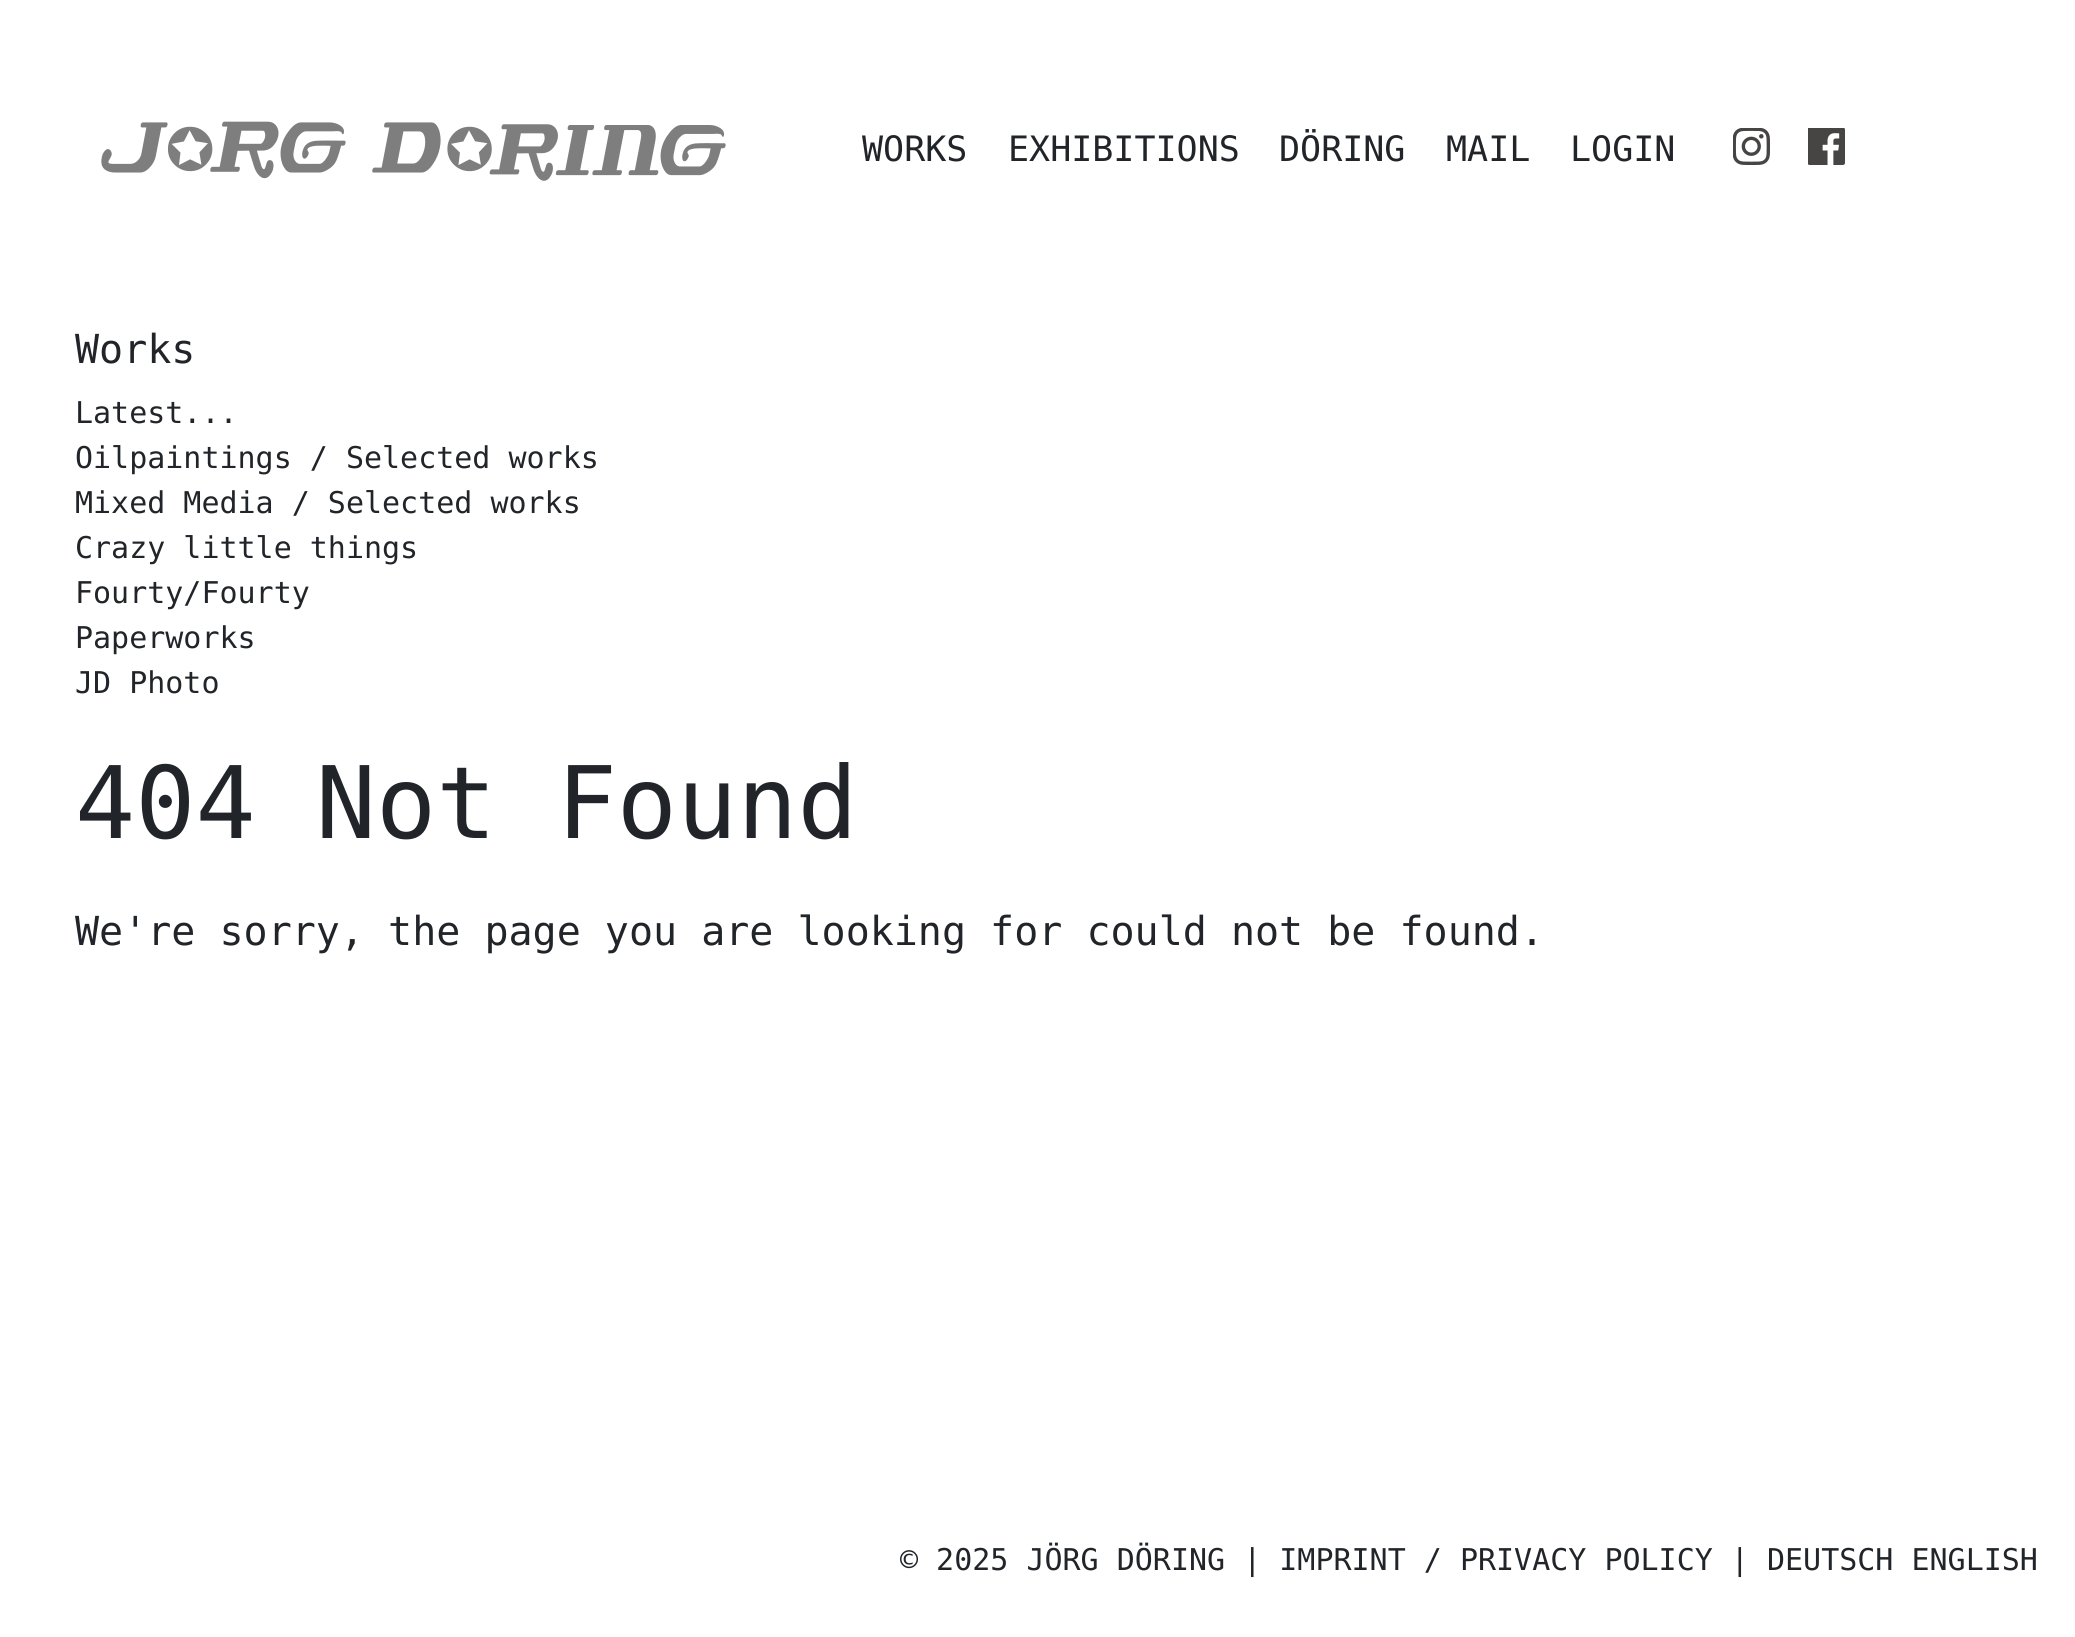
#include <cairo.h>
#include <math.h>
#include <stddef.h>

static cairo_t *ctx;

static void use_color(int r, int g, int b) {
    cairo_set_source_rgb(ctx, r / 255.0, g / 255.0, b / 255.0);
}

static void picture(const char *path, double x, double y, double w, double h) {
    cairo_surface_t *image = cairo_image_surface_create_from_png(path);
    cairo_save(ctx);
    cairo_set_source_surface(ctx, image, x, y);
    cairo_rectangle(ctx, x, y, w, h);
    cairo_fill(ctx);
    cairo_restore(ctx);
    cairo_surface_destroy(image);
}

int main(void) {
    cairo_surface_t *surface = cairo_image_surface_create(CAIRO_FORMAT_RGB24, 2075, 1637);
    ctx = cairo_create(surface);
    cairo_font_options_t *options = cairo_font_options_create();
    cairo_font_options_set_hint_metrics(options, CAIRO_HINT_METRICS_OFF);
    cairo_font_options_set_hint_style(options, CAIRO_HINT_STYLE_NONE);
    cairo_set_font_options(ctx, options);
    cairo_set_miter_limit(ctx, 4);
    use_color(255, 255, 255);
    cairo_paint(ctx);
    picture("img1.png", 101, 121, 625, 60);
    cairo_select_font_face(ctx, "DejaVu Sans Mono", CAIRO_FONT_SLANT_NORMAL, CAIRO_FONT_WEIGHT_NORMAL);
    cairo_set_font_size(ctx, 35);
    use_color(33, 37, 41);
    cairo_move_to(ctx, 862, 161);
    cairo_show_text(ctx, "WORKS");
    cairo_move_to(ctx, 1008, 161);
    cairo_show_text(ctx, "EXHIBITIONS");
    cairo_move_to(ctx, 1279, 161);
    cairo_show_text(ctx, "DÖRING");
    cairo_move_to(ctx, 1446, 161);
    cairo_show_text(ctx, "MAIL");
    cairo_move_to(ctx, 1570, 161);
    cairo_show_text(ctx, "LOGIN");
    picture("img2.png", 1733, 128, 37, 37);
    picture("img3.png", 1808, 128, 37, 37);
    cairo_set_font_size(ctx, 40);
    cairo_move_to(ctx, 75, 363);
    cairo_show_text(ctx, "Works");
    cairo_set_font_size(ctx, 30);
    cairo_move_to(ctx, 75, 423);
    cairo_show_text(ctx, "Latest...");
    cairo_move_to(ctx, 75, 468);
    cairo_show_text(ctx, "Oilpaintings / Selected works");
    cairo_move_to(ctx, 75, 513);
    cairo_show_text(ctx, "Mixed Media / Selected works");
    cairo_move_to(ctx, 75, 558);
    cairo_show_text(ctx, "Crazy little things");
    cairo_move_to(ctx, 75, 603);
    cairo_show_text(ctx, "Fourty/Fourty");
    cairo_move_to(ctx, 75, 648);
    cairo_show_text(ctx, "Paperworks");
    cairo_move_to(ctx, 75, 693);
    cairo_show_text(ctx, "JD Photo");
    cairo_set_font_size(ctx, 100);
    cairo_move_to(ctx, 75, 838);
    cairo_show_text(ctx, "404 Not Found");
    cairo_set_font_size(ctx, 40);
    cairo_move_to(ctx, 75, 945);
    cairo_show_text(ctx, "We're sorry, the page you are looking for could not be found.");
    cairo_set_font_size(ctx, 30);
    cairo_move_to(ctx, 900, 1570);
    cairo_show_text(ctx, "© 2025 JÖRG DÖRING | IMPRINT / PRIVACY POLICY | DEUTSCH ENGLISH");
    cairo_surface_write_to_png(surface, "result.png");
    cairo_font_options_destroy(options);
    cairo_destroy(ctx);
    cairo_surface_destroy(surface);
    return 0;
}
